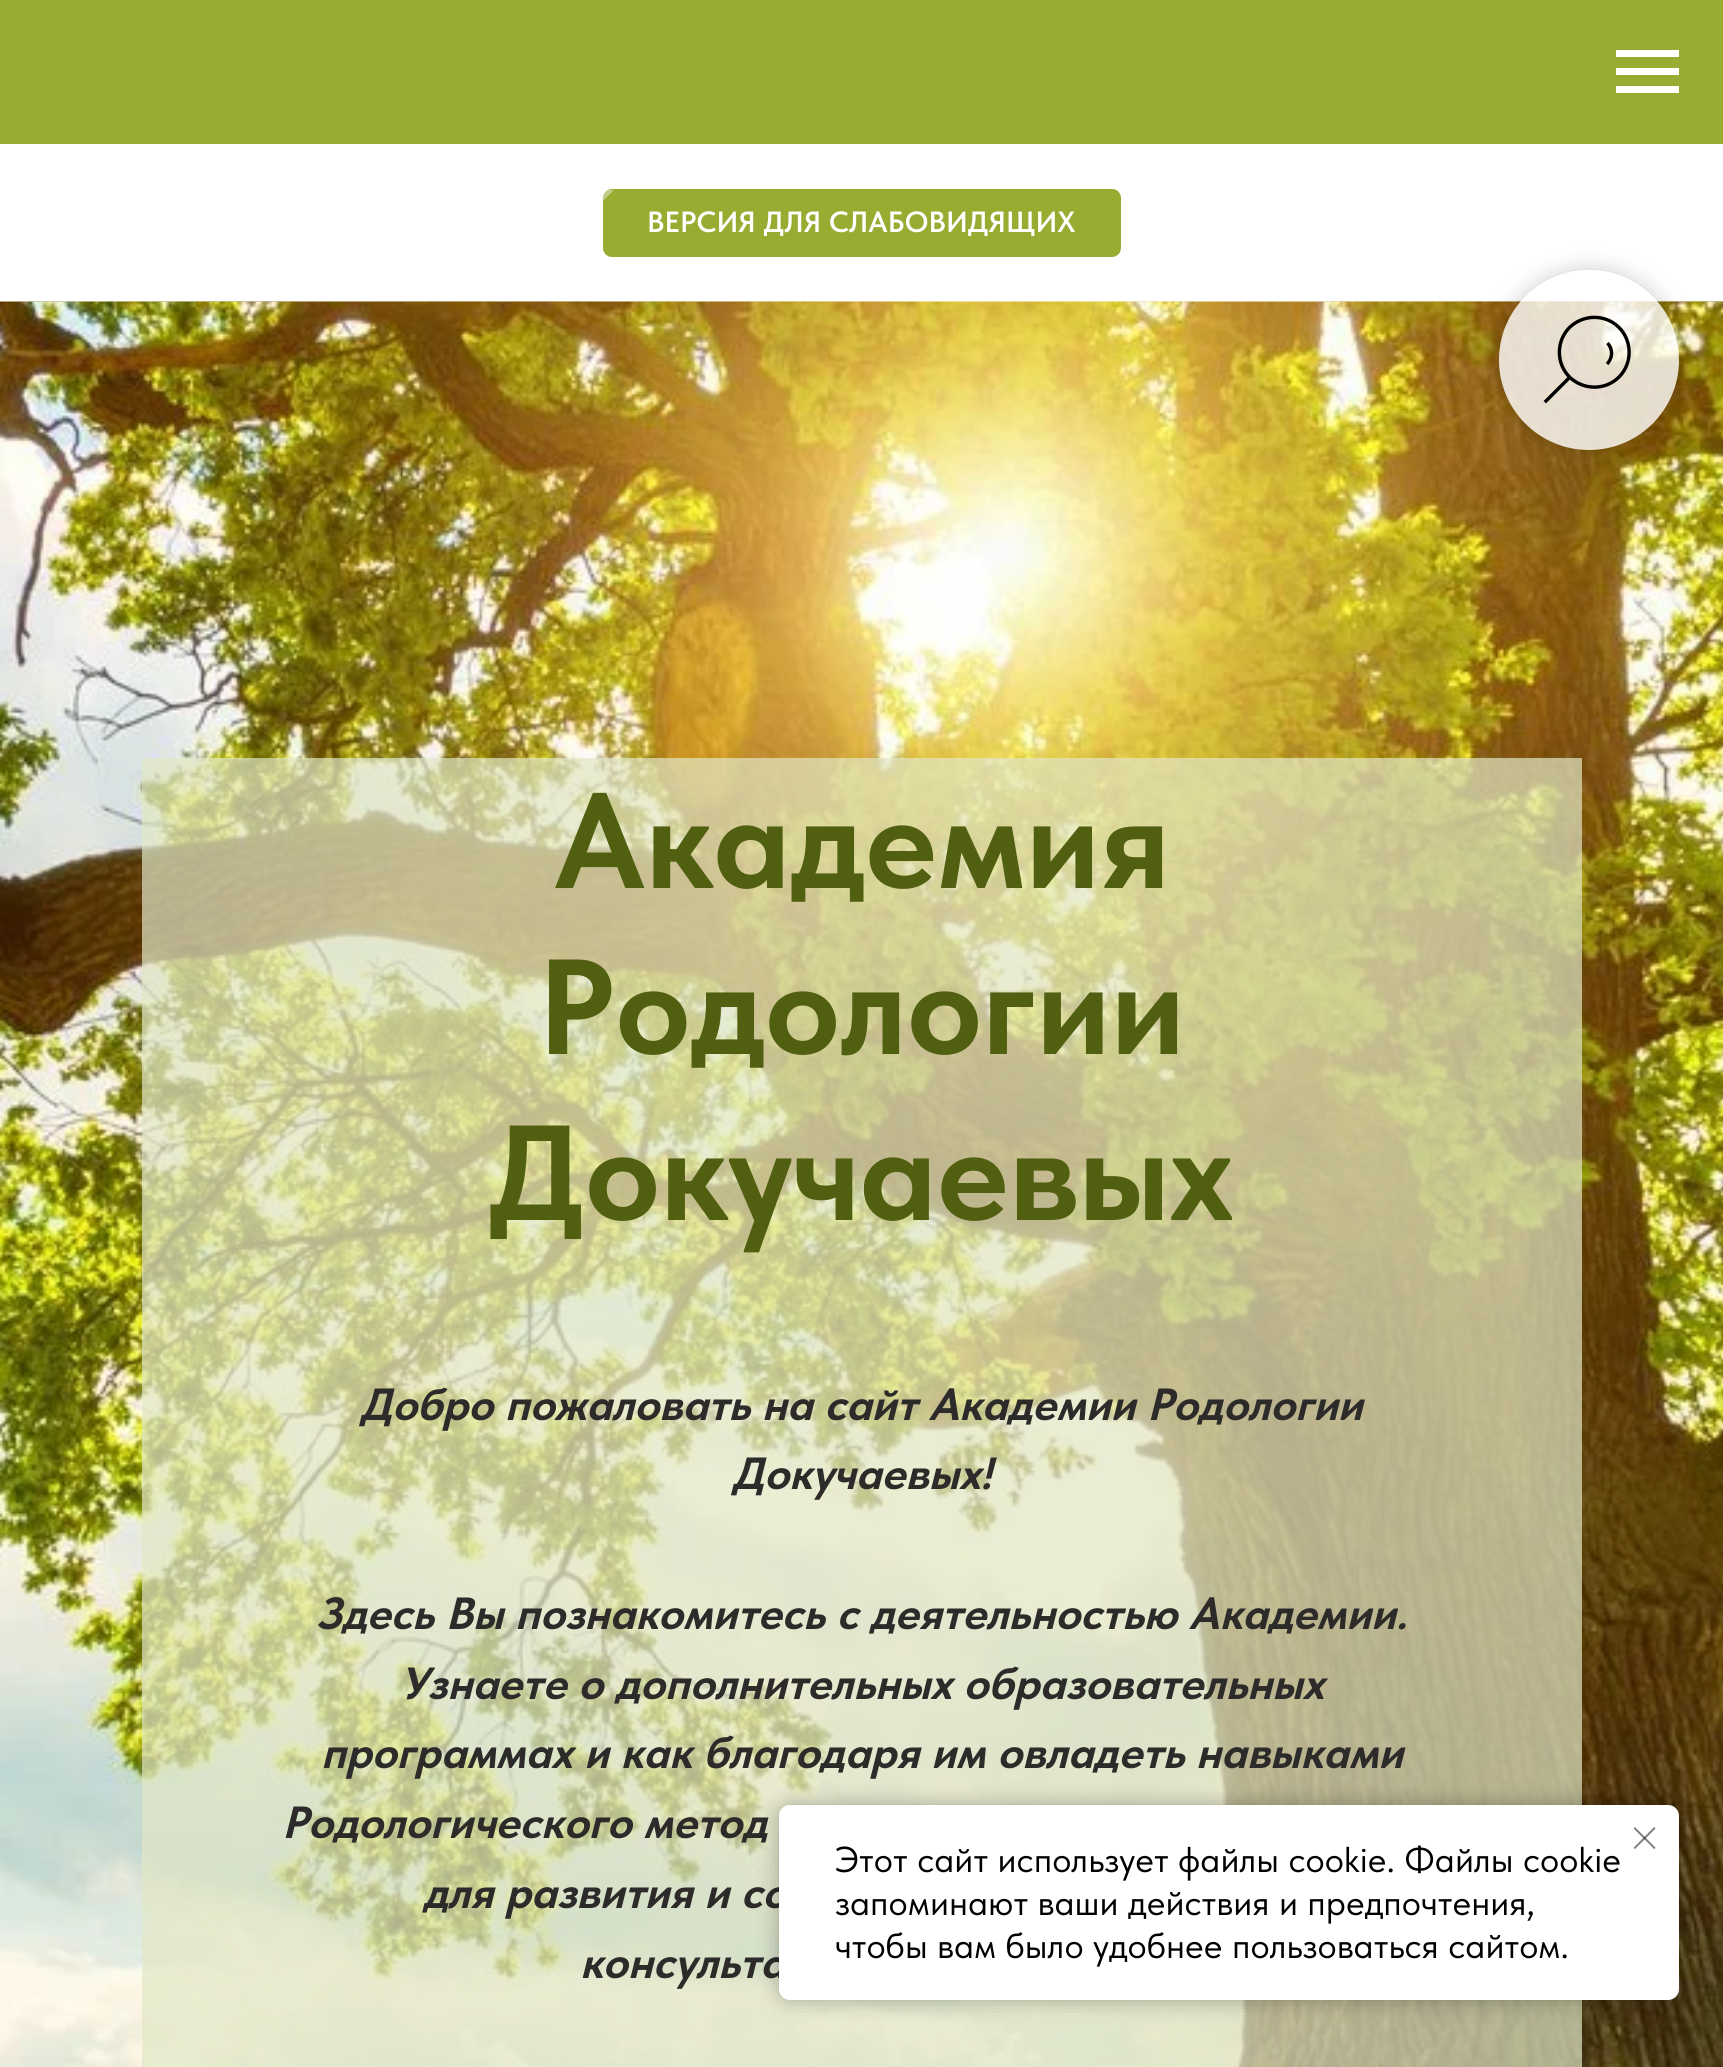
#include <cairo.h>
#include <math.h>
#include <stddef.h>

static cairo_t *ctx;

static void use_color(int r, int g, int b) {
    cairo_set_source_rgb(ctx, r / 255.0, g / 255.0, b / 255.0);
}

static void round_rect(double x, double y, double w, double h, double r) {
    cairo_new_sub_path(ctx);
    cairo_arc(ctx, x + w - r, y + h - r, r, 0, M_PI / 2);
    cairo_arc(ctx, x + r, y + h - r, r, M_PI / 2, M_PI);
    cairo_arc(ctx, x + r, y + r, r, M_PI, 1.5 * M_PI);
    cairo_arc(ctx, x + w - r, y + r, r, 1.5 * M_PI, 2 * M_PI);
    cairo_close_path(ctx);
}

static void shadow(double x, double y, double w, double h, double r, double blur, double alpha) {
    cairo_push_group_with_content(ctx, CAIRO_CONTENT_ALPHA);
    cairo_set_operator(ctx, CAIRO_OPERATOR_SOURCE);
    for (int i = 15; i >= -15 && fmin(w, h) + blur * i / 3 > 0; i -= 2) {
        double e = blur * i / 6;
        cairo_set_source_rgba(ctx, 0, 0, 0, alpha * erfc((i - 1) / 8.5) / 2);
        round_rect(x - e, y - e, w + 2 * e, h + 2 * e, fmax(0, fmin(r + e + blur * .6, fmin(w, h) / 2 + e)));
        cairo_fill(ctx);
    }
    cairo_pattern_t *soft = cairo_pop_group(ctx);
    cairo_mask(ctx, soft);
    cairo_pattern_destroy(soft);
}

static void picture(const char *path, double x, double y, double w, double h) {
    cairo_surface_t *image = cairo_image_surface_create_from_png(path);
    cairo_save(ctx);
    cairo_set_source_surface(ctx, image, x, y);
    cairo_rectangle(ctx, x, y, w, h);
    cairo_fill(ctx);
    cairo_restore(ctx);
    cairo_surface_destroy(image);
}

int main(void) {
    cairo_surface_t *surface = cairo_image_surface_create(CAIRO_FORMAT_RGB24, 1723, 2067);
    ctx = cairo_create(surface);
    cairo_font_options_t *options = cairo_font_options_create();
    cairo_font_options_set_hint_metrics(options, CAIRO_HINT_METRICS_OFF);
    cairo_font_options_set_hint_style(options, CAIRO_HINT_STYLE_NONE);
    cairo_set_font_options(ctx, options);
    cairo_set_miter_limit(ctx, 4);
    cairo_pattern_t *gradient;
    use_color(255, 255, 255);
    cairo_paint(ctx);
    use_color(152, 172, 50);
    cairo_rectangle(ctx, 0, 0, 1723, 144);
    cairo_fill(ctx);
    use_color(255, 255, 255);
    cairo_rectangle(ctx, 1616, 50, 63, 7);
    cairo_fill(ctx);
    cairo_rectangle(ctx, 1616, 68, 63, 7);
    cairo_fill(ctx);
    cairo_rectangle(ctx, 1616, 86, 63, 7);
    cairo_fill(ctx);
    use_color(152, 172, 50);
    round_rect(603, 189, 518, 68, 9);
    cairo_fill(ctx);
    gradient = cairo_pattern_create_linear(479, 223, 580, 223);
    cairo_pattern_add_color_stop_rgba(gradient, 0, 1, 1, 1, 0.1);
    cairo_pattern_add_color_stop_rgba(gradient, 1, 1, 1, 1, 0.4);
    cairo_set_source(ctx, gradient);
    cairo_pattern_destroy(gradient);
    cairo_new_path(ctx);
    cairo_move_to(ctx, 603, 201);
    cairo_line_to(ctx, 603, 198);
    cairo_curve_to(ctx, 603, 194.5, 605, 191.5, 608, 190);
    cairo_line_to(ctx, 614, 190);
    cairo_close_path(ctx);
    cairo_fill(ctx);
    cairo_select_font_face(ctx, "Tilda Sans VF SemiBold", CAIRO_FONT_SLANT_NORMAL, CAIRO_FONT_WEIGHT_NORMAL);
    cairo_set_font_size(ctx, 29.25);
    use_color(255, 255, 255);
    cairo_move_to(ctx, 647, 232);
    cairo_show_text(ctx, "ВЕРСИЯ ДЛЯ СЛАБОВИДЯЩИХ");
    picture("img1.png", 0, 301, 1723, 1);
    picture("img2.png", 0, 301, 1723, 1766);
    cairo_save(ctx);
    cairo_set_fill_rule(ctx, CAIRO_FILL_RULE_EVEN_ODD);
    cairo_new_path(ctx);
    cairo_move_to(ctx, 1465, 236);
    cairo_line_to(ctx, 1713, 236);
    cairo_line_to(ctx, 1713, 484);
    cairo_line_to(ctx, 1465, 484);
    cairo_close_path(ctx);
    cairo_move_to(ctx, 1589, 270);
    cairo_curve_to(ctx, 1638.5, 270, 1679, 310.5, 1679, 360);
    cairo_curve_to(ctx, 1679, 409.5, 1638.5, 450, 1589, 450);
    cairo_curve_to(ctx, 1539.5, 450, 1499, 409.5, 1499, 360);
    cairo_curve_to(ctx, 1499, 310.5, 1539.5, 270, 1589, 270);
    cairo_close_path(ctx);
    cairo_clip(ctx);
    use_color(0, 0, 0);
    shadow(1499, 270, 180, 180, 90, 11, 0.2);
    cairo_restore(ctx);
    cairo_set_source_rgba(ctx, 1, 1, 1, 0.8);
    cairo_arc(ctx, 1589, 360, 90, 0, 2 * M_PI);
    cairo_fill(ctx);
    cairo_new_path(ctx);
    cairo_move_to(ctx, 1568.5, 378.5);
    cairo_line_to(ctx, 1546, 401);
    use_color(0, 0, 0);
    cairo_set_line_width(ctx, 3.4);
    cairo_set_line_cap(ctx, CAIRO_LINE_CAP_SQUARE);
    cairo_stroke(ctx);
    cairo_new_path(ctx);
    cairo_move_to(ctx, 1619, 327.5);
    cairo_curve_to(ctx, 1632.5, 341, 1632.5, 363.5, 1619, 377);
    cairo_curve_to(ctx, 1605.5, 390.5, 1583.5, 390.5, 1569.5, 377);
    cairo_curve_to(ctx, 1556, 363.5, 1556, 341, 1569.5, 327.5);
    cairo_curve_to(ctx, 1583.5, 314, 1605.5, 314, 1619, 327.5);
    cairo_close_path(ctx);
    cairo_set_line_cap(ctx, CAIRO_LINE_CAP_BUTT);
    cairo_stroke(ctx);
    cairo_new_path(ctx);
    cairo_move_to(ctx, 1607.5, 343);
    cairo_curve_to(ctx, 1613, 349, 1613, 358, 1607, 364);
    cairo_stroke(ctx);
    cairo_set_source_rgba(ctx, 0.882, 0.906, 0.776, 0.7);
    cairo_rectangle(ctx, 142, 758, 1440, 1309);
    cairo_fill(ctx);
    cairo_select_font_face(ctx, "Tilda Sans VF", CAIRO_FONT_SLANT_NORMAL, CAIRO_FONT_WEIGHT_BOLD);
    cairo_set_font_size(ctx, 135);
    use_color(81, 95, 17);
    cairo_move_to(ctx, 554, 888);
    cairo_show_text(ctx, "Академия");
    cairo_move_to(ctx, 538, 1054);
    cairo_show_text(ctx, "Родологии");
    cairo_move_to(ctx, 489, 1220);
    cairo_show_text(ctx, "Докучаевых");
    cairo_select_font_face(ctx, "Tilda Sans VF", CAIRO_FONT_SLANT_ITALIC, CAIRO_FONT_WEIGHT_BOLD);
    cairo_set_font_size(ctx, 45);
    use_color(45, 42, 42);
    cairo_move_to(ctx, 360, 1420);
    cairo_show_text(ctx, "Добро пожаловать на сайт Академии Родологии");
    cairo_move_to(ctx, 732, 1489);
    cairo_show_text(ctx, "Докучаевых!");
    cairo_move_to(ctx, 316, 1629);
    cairo_show_text(ctx, "Здесь Вы познакомитесь с деятельностью Академии.");
    cairo_move_to(ctx, 400, 1699);
    cairo_show_text(ctx, "Узнаете о дополнительных образовательных");
    cairo_move_to(ctx, 321, 1768);
    cairo_show_text(ctx, "программах и как благодаря им овладеть навыками");
    cairo_move_to(ctx, 282, 1838);
    cairo_show_text(ctx, "Родологического метод");
    cairo_move_to(ctx, 423, 1908);
    cairo_show_text(ctx, "для развития и со");
    cairo_move_to(ctx, 580, 1978);
    cairo_show_text(ctx, "консульта");
    use_color(0, 0, 0);
    shadow(779, 1805, 900, 195, 11, 11, 0.3);
    use_color(255, 255, 255);
    round_rect(779, 1805, 900, 195, 11);
    cairo_fill(ctx);
    picture("img3.png", 1634, 1827, 22, 22);
    cairo_select_font_face(ctx, "Tilda Sans VF", CAIRO_FONT_SLANT_NORMAL, CAIRO_FONT_WEIGHT_NORMAL);
    cairo_set_font_size(ctx, 36);
    use_color(0, 0, 0);
    cairo_move_to(ctx, 835, 1872);
    cairo_show_text(ctx, "Этот сайт использует файлы cookie. Файлы cookie");
    cairo_move_to(ctx, 835, 1915);
    cairo_show_text(ctx, "запоминают ваши действия и предпочтения,");
    cairo_move_to(ctx, 835, 1958);
    cairo_show_text(ctx, "чтобы вам было удобнее пользоваться сайтом.");
    cairo_surface_write_to_png(surface, "result.png");
    cairo_font_options_destroy(options);
    cairo_destroy(ctx);
    cairo_surface_destroy(surface);
    return 0;
}
